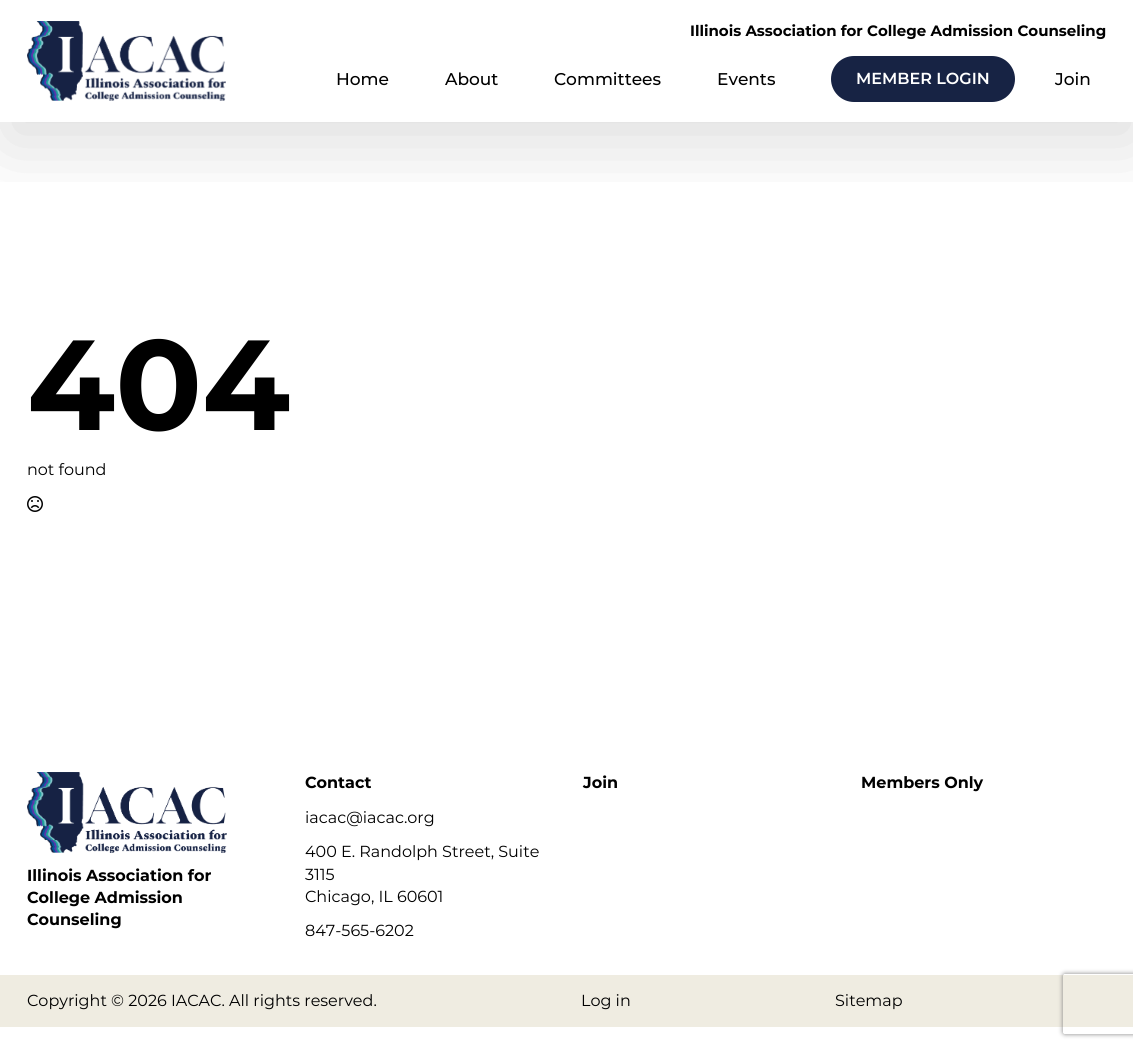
#include <cairo.h>
#include <math.h>
#include <stddef.h>

static cairo_t *ctx;

static void use_color(int r, int g, int b) {
    cairo_set_source_rgb(ctx, r / 255.0, g / 255.0, b / 255.0);
}

static void round_rect(double x, double y, double w, double h, double r) {
    cairo_new_sub_path(ctx);
    cairo_arc(ctx, x + w - r, y + h - r, r, 0, M_PI / 2);
    cairo_arc(ctx, x + r, y + h - r, r, M_PI / 2, M_PI);
    cairo_arc(ctx, x + r, y + r, r, M_PI, 1.5 * M_PI);
    cairo_arc(ctx, x + w - r, y + r, r, 1.5 * M_PI, 2 * M_PI);
    cairo_close_path(ctx);
}

static void shadow(double x, double y, double w, double h, double r, double blur, double alpha) {
    cairo_push_group_with_content(ctx, CAIRO_CONTENT_ALPHA);
    cairo_set_operator(ctx, CAIRO_OPERATOR_SOURCE);
    for (int i = 15; i >= -15 && fmin(w, h) + blur * i / 3 > 0; i -= 2) {
        double e = blur * i / 6;
        cairo_set_source_rgba(ctx, 0, 0, 0, alpha * erfc((i - 1) / 8.5) / 2);
        round_rect(x - e, y - e, w + 2 * e, h + 2 * e, fmax(0, fmin(r + e + blur * .6, fmin(w, h) / 2 + e)));
        cairo_fill(ctx);
    }
    cairo_pattern_t *soft = cairo_pop_group(ctx);
    cairo_mask(ctx, soft);
    cairo_pattern_destroy(soft);
}

static void picture(const char *path, double x, double y, double w, double h) {
    cairo_surface_t *image = cairo_image_surface_create_from_png(path);
    cairo_save(ctx);
    cairo_set_source_surface(ctx, image, x, y);
    cairo_rectangle(ctx, x, y, w, h);
    cairo_fill(ctx);
    cairo_restore(ctx);
    cairo_surface_destroy(image);
}

int main(void) {
    cairo_surface_t *surface = cairo_image_surface_create(CAIRO_FORMAT_RGB24, 1133, 1048);
    ctx = cairo_create(surface);
    cairo_font_options_t *options = cairo_font_options_create();
    cairo_font_options_set_hint_metrics(options, CAIRO_HINT_METRICS_OFF);
    cairo_font_options_set_hint_style(options, CAIRO_HINT_STYLE_NONE);
    cairo_set_font_options(ctx, options);
    cairo_set_miter_limit(ctx, 4);
    use_color(255, 255, 255);
    cairo_paint(ctx);
    cairo_save(ctx);
    cairo_rectangle(ctx, 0, 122, 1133, 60);
    cairo_clip(ctx);
    use_color(0, 0, 0);
    shadow(5, 20, 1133, 122, 0, 37.5, 0.14);
    cairo_restore(ctx);
    picture("img1.png", 27, 21, 199, 80);
    cairo_select_font_face(ctx, "Montserrat", CAIRO_FONT_SLANT_NORMAL, CAIRO_FONT_WEIGHT_BOLD);
    cairo_set_font_size(ctx, 15);
    use_color(0, 0, 0);
    cairo_move_to(ctx, 690, 36);
    cairo_show_text(ctx, "Illinois Association for College Admission Counseling");
    cairo_select_font_face(ctx, "Montserrat Medium", CAIRO_FONT_SLANT_NORMAL, CAIRO_FONT_WEIGHT_NORMAL);
    cairo_set_font_size(ctx, 17);
    cairo_move_to(ctx, 336, 85);
    cairo_show_text(ctx, "Home");
    cairo_move_to(ctx, 445, 85);
    cairo_show_text(ctx, "About");
    cairo_move_to(ctx, 554, 85);
    cairo_show_text(ctx, "Committees");
    cairo_move_to(ctx, 717, 85);
    cairo_show_text(ctx, "Events");
    use_color(23, 35, 68);
    round_rect(831, 56, 184, 46, 23);
    cairo_fill(ctx);
    cairo_select_font_face(ctx, "Montserrat SemiBold", CAIRO_FONT_SLANT_NORMAL, CAIRO_FONT_WEIGHT_NORMAL);
    cairo_set_font_size(ctx, 16);
    use_color(255, 255, 255);
    cairo_move_to(ctx, 856, 84);
    cairo_show_text(ctx, "MEMBER LOGIN");
    cairo_select_font_face(ctx, "Montserrat Medium", CAIRO_FONT_SLANT_NORMAL, CAIRO_FONT_WEIGHT_NORMAL);
    cairo_set_font_size(ctx, 17);
    use_color(0, 0, 0);
    cairo_move_to(ctx, 1055, 85);
    cairo_show_text(ctx, "Join");
    cairo_select_font_face(ctx, "Montserrat", CAIRO_FONT_SLANT_NORMAL, CAIRO_FONT_WEIGHT_BOLD);
    cairo_set_font_size(ctx, 128);
    cairo_move_to(ctx, 27, 430);
    cairo_show_text(ctx, "404");
    cairo_select_font_face(ctx, "Montserrat", CAIRO_FONT_SLANT_NORMAL, CAIRO_FONT_WEIGHT_NORMAL);
    cairo_set_font_size(ctx, 16);
    cairo_move_to(ctx, 27, 475);
    cairo_show_text(ctx, "not found");
    picture("img2.png", 27, 496, 16, 16);
    cairo_select_font_face(ctx, "Montserrat", CAIRO_FONT_SLANT_NORMAL, CAIRO_FONT_WEIGHT_BOLD);
    cairo_move_to(ctx, 305, 788);
    cairo_show_text(ctx, "Contact");
    cairo_select_font_face(ctx, "Montserrat", CAIRO_FONT_SLANT_NORMAL, CAIRO_FONT_WEIGHT_NORMAL);
    cairo_move_to(ctx, 305, 823);
    cairo_show_text(ctx, "iacac@iacac.org");
    cairo_move_to(ctx, 305, 857);
    cairo_show_text(ctx, "400 E. Randolph Street, Suite");
    cairo_move_to(ctx, 305, 880);
    cairo_show_text(ctx, "3115");
    cairo_move_to(ctx, 305, 902);
    cairo_show_text(ctx, "Chicago, IL 60601");
    cairo_move_to(ctx, 305, 936);
    cairo_show_text(ctx, "847-565-6202");
    cairo_select_font_face(ctx, "Montserrat", CAIRO_FONT_SLANT_NORMAL, CAIRO_FONT_WEIGHT_BOLD);
    cairo_move_to(ctx, 583, 788);
    cairo_show_text(ctx, "Join");
    cairo_move_to(ctx, 861, 788);
    cairo_show_text(ctx, "Members Only");
    picture("img3.png", 27, 772, 200, 81);
    cairo_move_to(ctx, 27, 881);
    cairo_show_text(ctx, "Illinois Association for");
    cairo_move_to(ctx, 27, 903);
    cairo_show_text(ctx, "College Admission");
    cairo_move_to(ctx, 27, 925);
    cairo_show_text(ctx, "Counseling");
    use_color(239, 236, 225);
    cairo_rectangle(ctx, 0, 975, 1133, 52);
    cairo_fill(ctx);
    cairo_select_font_face(ctx, "Montserrat", CAIRO_FONT_SLANT_NORMAL, CAIRO_FONT_WEIGHT_NORMAL);
    use_color(0, 0, 0);
    cairo_move_to(ctx, 27, 1006);
    cairo_show_text(ctx, "Copyright © 2026 IACAC. All rights reserved.");
    cairo_move_to(ctx, 581, 1006);
    cairo_show_text(ctx, "Log in");
    cairo_move_to(ctx, 835, 1006);
    cairo_show_text(ctx, "Sitemap");
    cairo_save(ctx);
    cairo_set_fill_rule(ctx, CAIRO_FILL_RULE_EVEN_ODD);
    cairo_new_path(ctx);
    cairo_move_to(ctx, 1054, 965);
    cairo_line_to(ctx, 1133, 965);
    cairo_line_to(ctx, 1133, 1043);
    cairo_line_to(ctx, 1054, 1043);
    cairo_close_path(ctx);
    cairo_move_to(ctx, 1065, 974);
    cairo_line_to(ctx, 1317, 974);
    cairo_curve_to(ctx, 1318, 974, 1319, 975, 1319, 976);
    cairo_line_to(ctx, 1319, 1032);
    cairo_curve_to(ctx, 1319, 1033, 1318, 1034, 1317, 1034);
    cairo_line_to(ctx, 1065, 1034);
    cairo_curve_to(ctx, 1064, 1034, 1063, 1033, 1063, 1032);
    cairo_line_to(ctx, 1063, 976);
    cairo_curve_to(ctx, 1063, 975, 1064, 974, 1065, 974);
    cairo_close_path(ctx);
    cairo_clip(ctx);
    use_color(128, 128, 128);
    shadow(1063, 974, 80, 60, 2, 2.5, 1);
    cairo_restore(ctx);
    cairo_surface_write_to_png(surface, "result.png");
    cairo_font_options_destroy(options);
    cairo_destroy(ctx);
    cairo_surface_destroy(surface);
    return 0;
}
